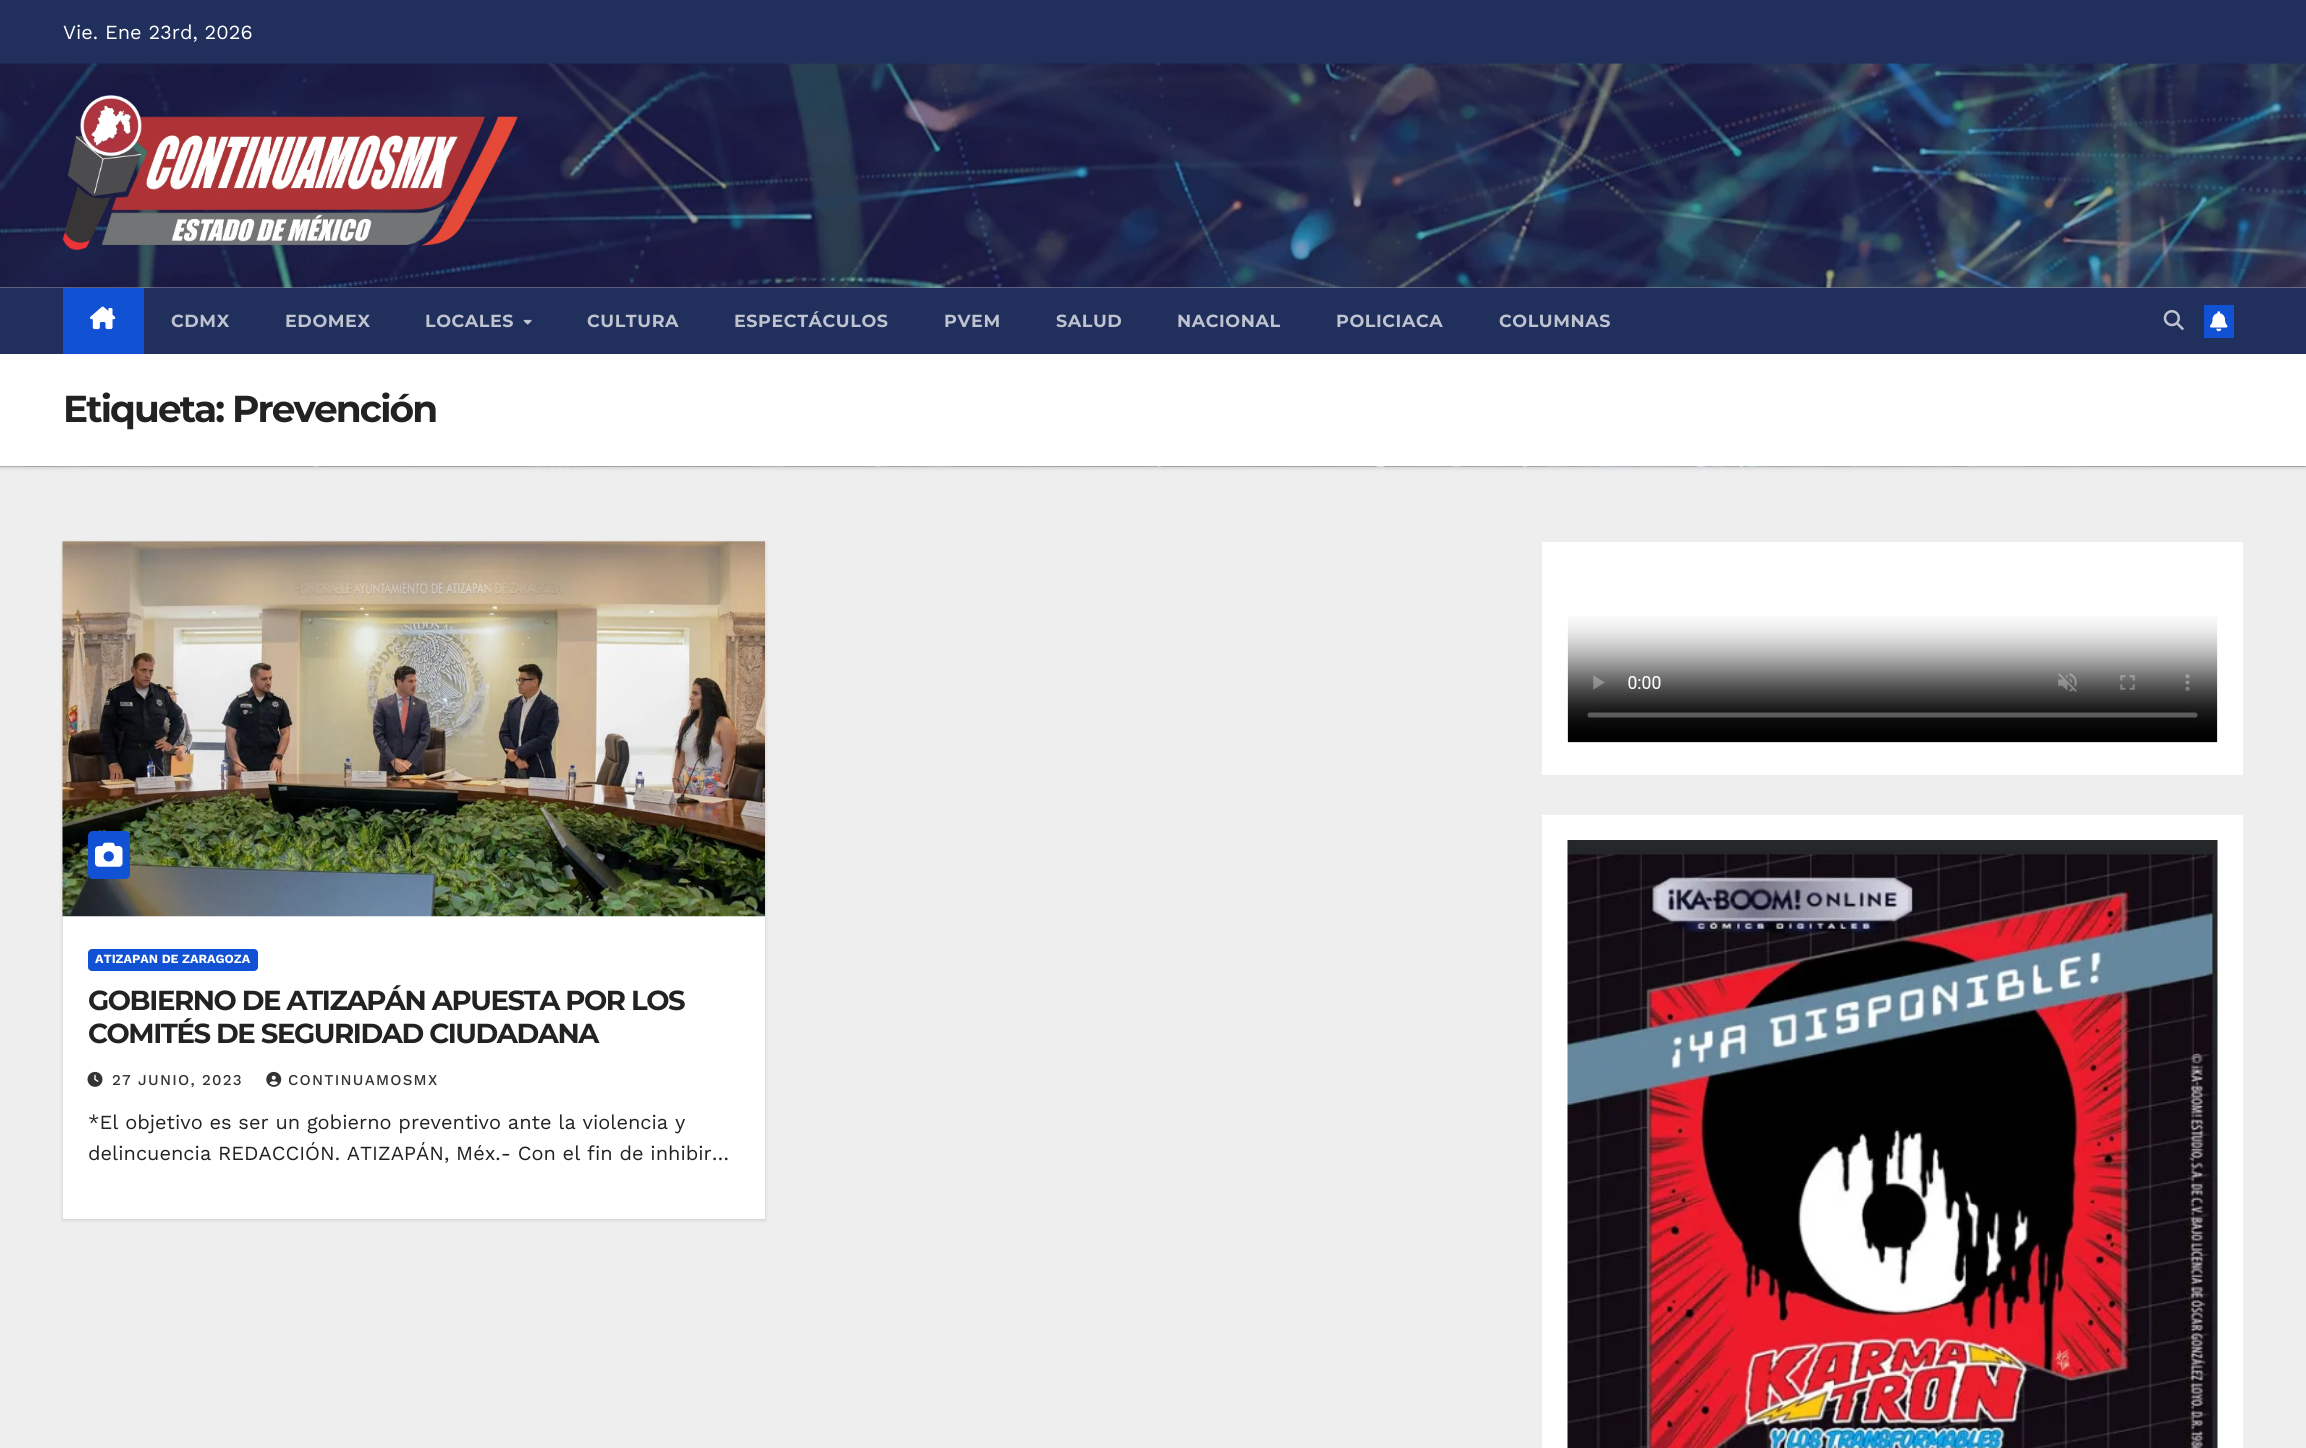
#include <cairo.h>
#include <math.h>
#include <stddef.h>

static cairo_t *ctx;

static void use_color(int r, int g, int b) {
    cairo_set_source_rgb(ctx, r / 255.0, g / 255.0, b / 255.0);
}

static void spaced_text(double x, double y, const char *s, double letter, double word) {
    cairo_move_to(ctx, x, y);
    while (*s) {
        char ch[5] = {0};
        int n = 0;
        do ch[n++] = *s++; while ((*s & 0xC0) == 0x80);
        cairo_show_text(ctx, ch);
        cairo_rel_move_to(ctx, letter + word * (*ch == ' '), 0);
    }
}

static void round_rect(double x, double y, double w, double h, double r) {
    cairo_new_sub_path(ctx);
    cairo_arc(ctx, x + w - r, y + h - r, r, 0, M_PI / 2);
    cairo_arc(ctx, x + r, y + h - r, r, M_PI / 2, M_PI);
    cairo_arc(ctx, x + r, y + r, r, M_PI, 1.5 * M_PI);
    cairo_arc(ctx, x + w - r, y + r, r, 1.5 * M_PI, 2 * M_PI);
    cairo_close_path(ctx);
}

static void shadow(double x, double y, double w, double h, double r, double blur, double alpha) {
    cairo_push_group_with_content(ctx, CAIRO_CONTENT_ALPHA);
    cairo_set_operator(ctx, CAIRO_OPERATOR_SOURCE);
    for (int i = 15; i >= -15 && fmin(w, h) + blur * i / 3 > 0; i -= 2) {
        double e = blur * i / 6;
        cairo_set_source_rgba(ctx, 0, 0, 0, alpha * erfc((i - 1) / 8.5) / 2);
        round_rect(x - e, y - e, w + 2 * e, h + 2 * e, fmax(0, fmin(r + e + blur * .6, fmin(w, h) / 2 + e)));
        cairo_fill(ctx);
    }
    cairo_pattern_t *soft = cairo_pop_group(ctx);
    cairo_mask(ctx, soft);
    cairo_pattern_destroy(soft);
}

static void picture(const char *path, double x, double y, double w, double h) {
    cairo_surface_t *image = cairo_image_surface_create_from_png(path);
    cairo_save(ctx);
    cairo_set_source_surface(ctx, image, x, y);
    cairo_rectangle(ctx, x, y, w, h);
    cairo_fill(ctx);
    cairo_restore(ctx);
    cairo_surface_destroy(image);
}

int main(void) {
    cairo_surface_t *surface = cairo_image_surface_create(CAIRO_FORMAT_RGB24, 2306, 1448);
    ctx = cairo_create(surface);
    cairo_font_options_t *options = cairo_font_options_create();
    cairo_font_options_set_hint_metrics(options, CAIRO_HINT_METRICS_OFF);
    cairo_font_options_set_hint_style(options, CAIRO_HINT_STYLE_NONE);
    cairo_set_font_options(ctx, options);
    cairo_set_miter_limit(ctx, 4);
    use_color(238, 238, 238);
    cairo_paint(ctx);
    use_color(156, 162, 179);
    cairo_rectangle(ctx, 0, 287, 2306, 1);
    cairo_fill(ctx);
    use_color(32, 47, 91);
    cairo_rectangle(ctx, 0, 0, 2306, 64);
    cairo_fill(ctx);
    cairo_select_font_face(ctx, "Work Sans", CAIRO_FONT_SLANT_NORMAL, CAIRO_FONT_WEIGHT_NORMAL);
    cairo_set_font_size(ctx, 20);
    use_color(255, 255, 255);
    cairo_move_to(ctx, 63, 39);
    cairo_show_text(ctx, "Vie. Ene 23rd, 2026");
    picture("img1.png", 0, 63, 2306, 225);
    picture("img2.png", 62, 95, 456, 155);
    use_color(0, 0, 0);
    shadow(0, 355, 2306, 113, 0, 2, 0.15);
    use_color(32, 47, 91);
    cairo_rectangle(ctx, 0, 288, 2306, 66);
    cairo_fill(ctx);
    use_color(17, 81, 211);
    cairo_rectangle(ctx, 63, 288, 81, 66);
    cairo_fill(ctx);
    picture("img3.png", 90, 306, 26, 24);
    cairo_select_font_face(ctx, "Montserrat", CAIRO_FONT_SLANT_NORMAL, CAIRO_FONT_WEIGHT_BOLD);
    cairo_set_font_size(ctx, 17.5);
    use_color(190, 195, 207);
    spaced_text(171, 327, "CDMX", 0.6, 0);
    spaced_text(285, 327, "EDOMEX", 0.6, 0);
    spaced_text(425, 327, "LOCALES", 0.6, 0);
    picture("img4.png", 523, 319, 9, 6);
    spaced_text(587, 327, "CULTURA", 0.6, 0);
    spaced_text(734, 327, "ESPECTÁCULOS", 0.6, 0);
    spaced_text(944, 327, "PVEM", 0.6, 0);
    spaced_text(1056, 327, "SALUD", 0.6, 0);
    spaced_text(1177, 327, "NACIONAL", 0.6, 0);
    spaced_text(1336, 327, "POLICIACA", 0.6, 0);
    spaced_text(1499, 327, "COLUMNAS", 0.6, 0);
    picture("img5.png", 2163, 310, 21, 20);
    use_color(17, 81, 211);
    cairo_rectangle(ctx, 2204, 305, 30, 33);
    cairo_fill(ctx);
    picture("img6.png", 2210, 311, 18, 21);
    picture("img7.png", 0, 466, 2306, 1);
    use_color(255, 255, 255);
    cairo_rectangle(ctx, 0, 354, 2306, 112);
    cairo_fill(ctx);
    cairo_set_font_size(ctx, 37.5);
    use_color(34, 34, 34);
    spaced_text(63, 422, "Etiqueta: Prevención", -1.9, 0);
    use_color(0, 0, 0);
    shadow(63, 543, 702, 677, 0, 2, 0.15);
    use_color(255, 255, 255);
    cairo_rectangle(ctx, 63, 541, 702, 678);
    cairo_fill(ctx);
    picture("img8.png", 62, 541, 703, 376);
    use_color(17, 81, 211);
    round_rect(88, 831, 42, 48, 5);
    cairo_fill(ctx);
    picture("img9.png", 95, 842, 28, 25);
    round_rect(88, 949, 170, 22, 4);
    cairo_fill(ctx);
    cairo_select_font_face(ctx, "Work Sans", CAIRO_FONT_SLANT_NORMAL, CAIRO_FONT_WEIGHT_BOLD);
    cairo_set_font_size(ctx, 12.5);
    use_color(255, 255, 255);
    cairo_move_to(ctx, 95, 963);
    cairo_show_text(ctx, "ATIZAPAN DE ZARAGOZA");
    cairo_select_font_face(ctx, "Montserrat", CAIRO_FONT_SLANT_NORMAL, CAIRO_FONT_WEIGHT_BOLD);
    cairo_set_font_size(ctx, 27.5);
    use_color(34, 34, 34);
    spaced_text(88, 1010, "GOBIERNO DE ATIZAPÁN APUESTA POR LOS", -1.4, 0);
    spaced_text(88, 1043, "COMITÉS DE SEGURIDAD CIUDADANA", -1.4, 0);
    picture("img10.png", 87, 1071, 16, 16);
    cairo_select_font_face(ctx, "Work Sans Medium", CAIRO_FONT_SLANT_NORMAL, CAIRO_FONT_WEIGHT_NORMAL);
    cairo_set_font_size(ctx, 15);
    use_color(51, 51, 51);
    spaced_text(112, 1085, "27 JUNIO, 2023", 1.25, 0);
    picture("img11.png", 266, 1071, 16, 16);
    spaced_text(288, 1085, "CONTINUAMOSMX", 1.25, 0);
    cairo_select_font_face(ctx, "Work Sans", CAIRO_FONT_SLANT_NORMAL, CAIRO_FONT_WEIGHT_NORMAL);
    cairo_set_font_size(ctx, 20);
    use_color(34, 34, 34);
    cairo_move_to(ctx, 88, 1129);
    cairo_show_text(ctx, "*El objetivo es ser un gobierno preventivo ante la violencia y");
    cairo_move_to(ctx, 88, 1160);
    cairo_show_text(ctx, "delincuencia REDACCIÓN. ATIZAPÁN, Méx.- Con el fin de inhibir…");
    use_color(255, 255, 255);
    cairo_rectangle(ctx, 1542, 542, 701, 233);
    cairo_fill(ctx);
    picture("img12.png", 1567, 616, 651, 127);
    cairo_rectangle(ctx, 1542, 815, 701, 633);
    cairo_fill(ctx);
    picture("img13.png", 1567, 840, 651, 608);
    cairo_surface_write_to_png(surface, "result.png");
    cairo_font_options_destroy(options);
    cairo_destroy(ctx);
    cairo_surface_destroy(surface);
    return 0;
}
